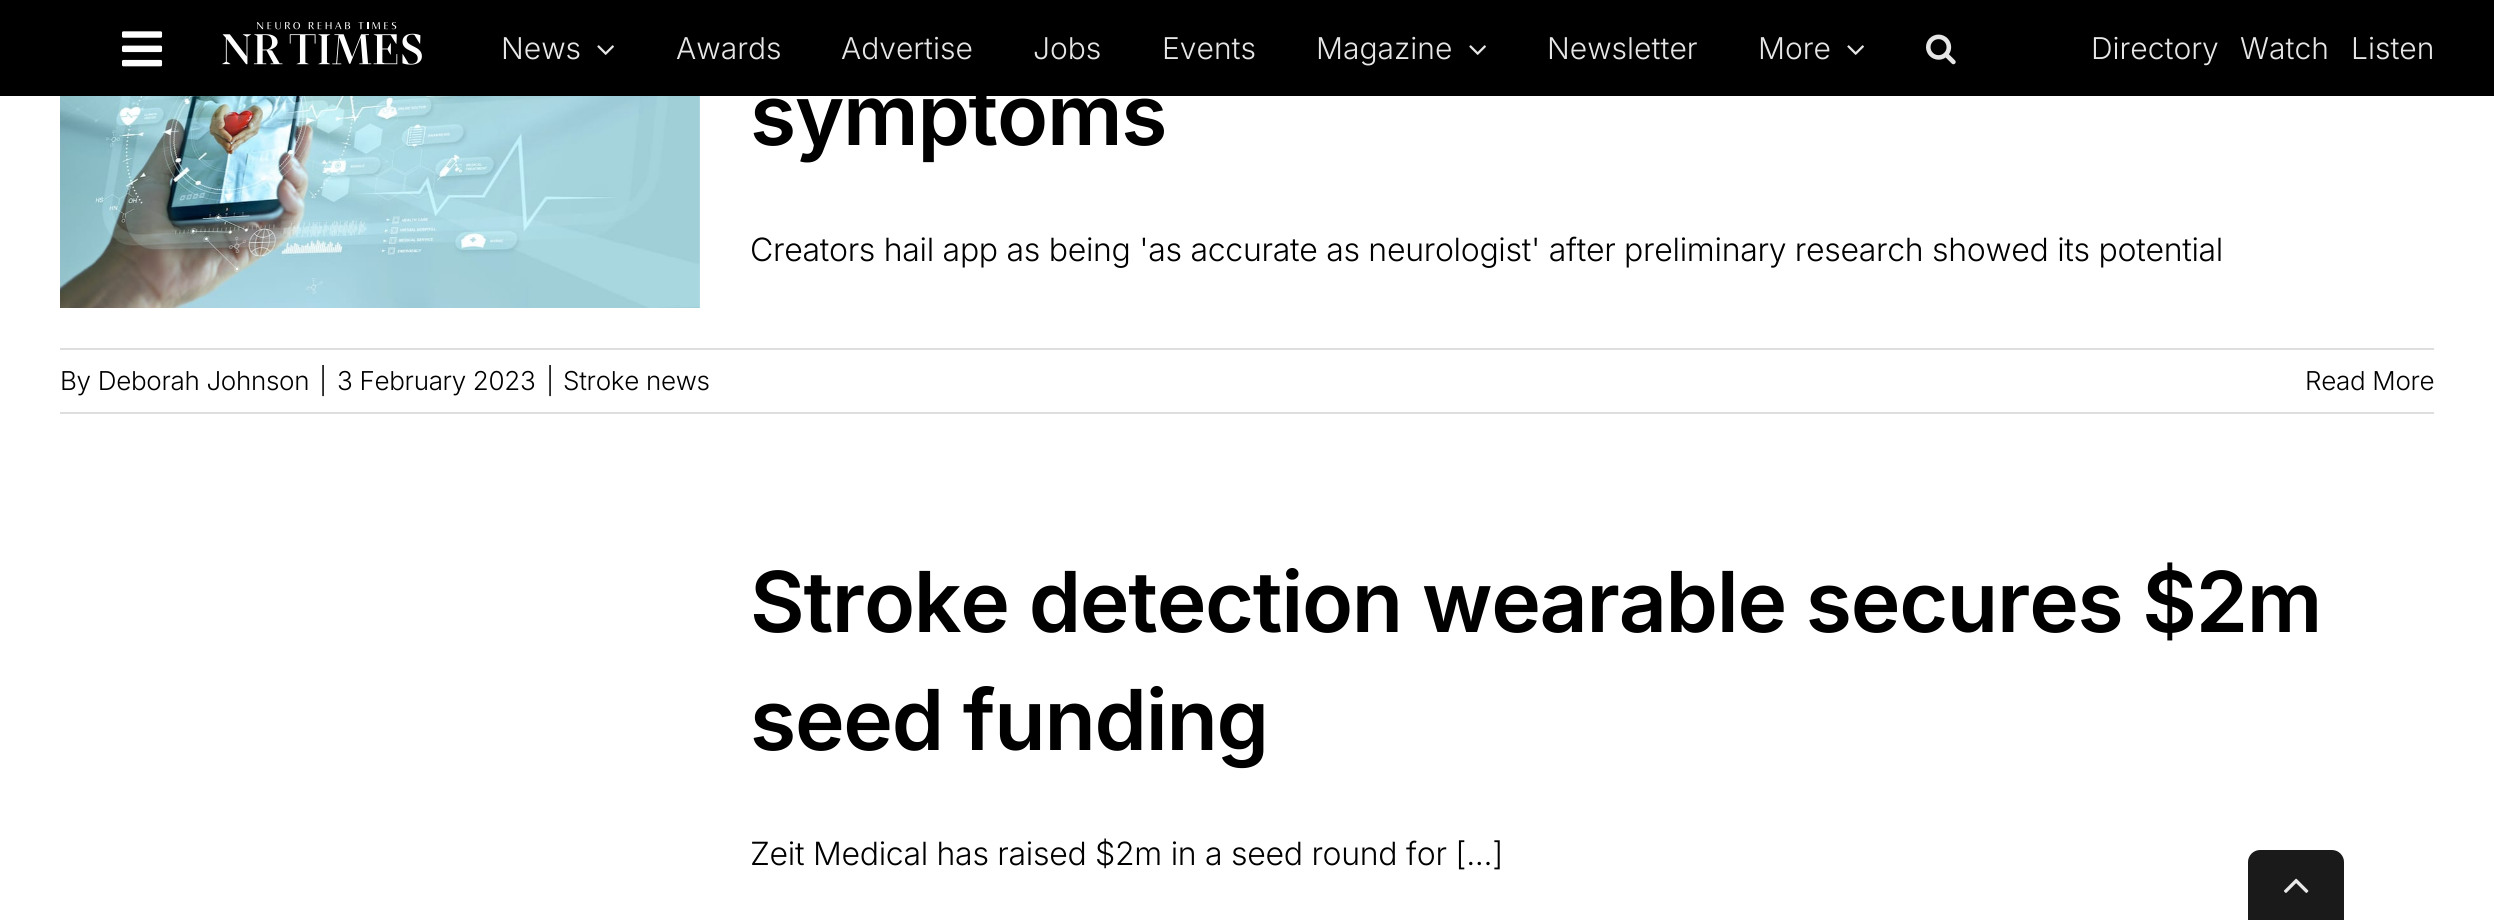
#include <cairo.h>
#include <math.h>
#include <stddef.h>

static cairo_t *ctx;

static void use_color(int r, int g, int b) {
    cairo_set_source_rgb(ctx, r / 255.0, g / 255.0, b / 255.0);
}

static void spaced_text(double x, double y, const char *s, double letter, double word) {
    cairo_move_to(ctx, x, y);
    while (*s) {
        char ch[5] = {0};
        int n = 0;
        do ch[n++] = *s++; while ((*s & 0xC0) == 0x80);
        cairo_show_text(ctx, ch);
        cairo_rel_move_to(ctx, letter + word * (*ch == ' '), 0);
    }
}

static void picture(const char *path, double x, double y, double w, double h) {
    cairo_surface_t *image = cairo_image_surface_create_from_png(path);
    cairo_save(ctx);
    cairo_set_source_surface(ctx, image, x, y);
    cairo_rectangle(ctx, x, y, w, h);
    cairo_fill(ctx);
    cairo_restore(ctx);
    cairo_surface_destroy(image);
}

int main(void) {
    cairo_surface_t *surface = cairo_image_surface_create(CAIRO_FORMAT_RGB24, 2494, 920);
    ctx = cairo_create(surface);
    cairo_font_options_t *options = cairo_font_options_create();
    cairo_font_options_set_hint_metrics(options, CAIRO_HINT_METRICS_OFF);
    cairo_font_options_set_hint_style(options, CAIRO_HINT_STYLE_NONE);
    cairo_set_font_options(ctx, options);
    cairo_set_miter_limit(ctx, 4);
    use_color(255, 255, 255);
    cairo_paint(ctx);
    use_color(0, 0, 0);
    cairo_rectangle(ctx, 0, 0, 2494, 96);
    cairo_fill(ctx);
    picture("img1.png", 122, 31, 41, 36);
    picture("img2.png", 222, 22, 200, 43);
    cairo_select_font_face(ctx, "Inter Light", CAIRO_FONT_SLANT_NORMAL, CAIRO_FONT_WEIGHT_NORMAL);
    cairo_set_font_size(ctx, 30);
    use_color(230, 230, 230);
    cairo_move_to(ctx, 501, 59);
    cairo_show_text(ctx, "News");
    picture("img3.png", 597, 45, 17, 10);
    cairo_move_to(ctx, 676, 59);
    cairo_show_text(ctx, "Awards");
    cairo_move_to(ctx, 841, 59);
    cairo_show_text(ctx, "Advertise");
    cairo_move_to(ctx, 1033, 59);
    cairo_show_text(ctx, "Jobs");
    cairo_move_to(ctx, 1162, 59);
    cairo_show_text(ctx, "Events");
    cairo_move_to(ctx, 1316, 59);
    cairo_show_text(ctx, "Magazine");
    picture("img3.png", 1469, 45, 17, 10);
    cairo_move_to(ctx, 1547, 59);
    cairo_show_text(ctx, "Newsletter");
    cairo_move_to(ctx, 1758, 59);
    cairo_show_text(ctx, "More");
    picture("img3.png", 1847, 45, 17, 10);
    picture("img4.png", 1926, 34, 30, 31);
    cairo_move_to(ctx, 2091, 59);
    cairo_show_text(ctx, "Directory");
    cairo_move_to(ctx, 2240, 59);
    cairo_show_text(ctx, "Watch");
    cairo_move_to(ctx, 2351, 59);
    cairo_show_text(ctx, "Listen");
    picture("img5.png", 60, 96, 640, 212);
    cairo_select_font_face(ctx, "Inter SemiBold", CAIRO_FONT_SLANT_NORMAL, CAIRO_FONT_WEIGHT_NORMAL);
    cairo_set_font_size(ctx, 84);
    use_color(0, 0, 0);
    spaced_text(750, 145, "symptoms", -1.25, 0);
    cairo_select_font_face(ctx, "Inter Light", CAIRO_FONT_SLANT_NORMAL, CAIRO_FONT_WEIGHT_NORMAL);
    cairo_set_font_size(ctx, 32);
    spaced_text(750, 261, "Creators hail app as being 'as accurate as neurologist' after preliminary research showed its potential", -0.3, 0);
    use_color(222, 222, 222);
    cairo_rectangle(ctx, 60, 348, 2374, 2);
    cairo_fill(ctx);
    cairo_rectangle(ctx, 60, 412, 2374, 2);
    cairo_fill(ctx);
    cairo_set_font_size(ctx, 26);
    use_color(0, 0, 0);
    spaced_text(60, 390, "By Deborah Johnson", -0.3, 0);
    spaced_text(319, 390, "|", -0.3, 0);
    spaced_text(337, 390, "3 February 2023", -0.3, 0);
    spaced_text(546, 390, "|", -0.3, 0);
    spaced_text(563, 390, "Stroke news", -0.3, 0);
    spaced_text(2305, 390, "Read More", -0.3, 0);
    cairo_select_font_face(ctx, "Inter SemiBold", CAIRO_FONT_SLANT_NORMAL, CAIRO_FONT_WEIGHT_NORMAL);
    cairo_set_font_size(ctx, 84);
    spaced_text(750, 632, "Stroke detection wearable secures $2m", -1.25, 0);
    spaced_text(750, 750, "seed funding", -1.25, 0);
    cairo_select_font_face(ctx, "Inter Light", CAIRO_FONT_SLANT_NORMAL, CAIRO_FONT_WEIGHT_NORMAL);
    cairo_set_font_size(ctx, 32);
    spaced_text(750, 865, "Zeit Medical has raised $2m in a seed round for [...]", -0.3, 0);
    use_color(26, 26, 26);
    cairo_new_path(ctx);
    cairo_move_to(ctx, 2260, 850);
    cairo_line_to(ctx, 2332, 850);
    cairo_curve_to(ctx, 2338.5, 850, 2344, 855.5, 2344, 862);
    cairo_line_to(ctx, 2344, 920);
    cairo_line_to(ctx, 2248, 920);
    cairo_line_to(ctx, 2248, 862);
    cairo_curve_to(ctx, 2248, 855.5, 2253.5, 850, 2260, 850);
    cairo_close_path(ctx);
    cairo_fill(ctx);
    picture("img6.png", 2284, 878, 25, 15);
    cairo_surface_write_to_png(surface, "result.png");
    cairo_font_options_destroy(options);
    cairo_destroy(ctx);
    cairo_surface_destroy(surface);
    return 0;
}
